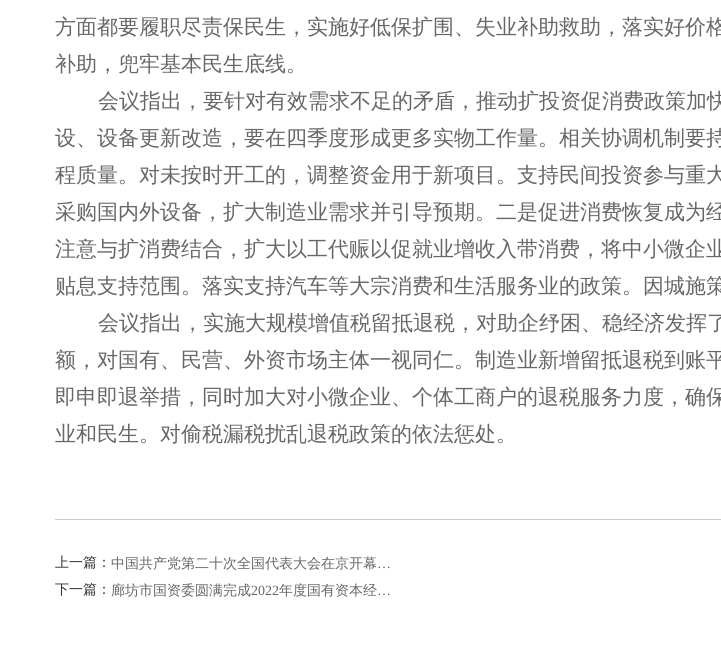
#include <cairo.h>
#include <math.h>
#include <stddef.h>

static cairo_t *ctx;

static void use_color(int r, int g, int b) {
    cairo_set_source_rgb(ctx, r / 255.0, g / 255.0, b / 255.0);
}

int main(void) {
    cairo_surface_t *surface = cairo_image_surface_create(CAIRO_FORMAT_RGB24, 721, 671);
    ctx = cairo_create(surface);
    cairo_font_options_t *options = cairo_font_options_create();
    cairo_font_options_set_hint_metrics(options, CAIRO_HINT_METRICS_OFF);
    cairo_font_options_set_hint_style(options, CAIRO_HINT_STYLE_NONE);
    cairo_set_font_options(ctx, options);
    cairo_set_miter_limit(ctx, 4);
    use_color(255, 255, 255);
    cairo_paint(ctx);
    use_color(204, 204, 204);
    cairo_rectangle(ctx, 55, 519, 666, 1);
    cairo_fill(ctx);
    cairo_select_font_face(ctx, "WenQuanYi Zen Hei Medium", CAIRO_FONT_SLANT_NORMAL, CAIRO_FONT_WEIGHT_NORMAL);
    cairo_set_font_size(ctx, 21);
    use_color(102, 102, 102);
    cairo_move_to(ctx, 55, 34);
    cairo_show_text(ctx, "方面都要履职尽责保民生，实施好低保扩围、失业补助救助，落实好价格");
    cairo_move_to(ctx, 55, 71);
    cairo_show_text(ctx, "补助，兜牢基本民生底线。");
    cairo_move_to(ctx, 98, 108);
    cairo_show_text(ctx, "会议指出，要针对有效需求不足的矛盾，推动扩投资促消费政策加快");
    cairo_move_to(ctx, 55, 145);
    cairo_show_text(ctx, "设、设备更新改造，要在四季度形成更多实物工作量。相关协调机制要持");
    cairo_move_to(ctx, 55, 182);
    cairo_show_text(ctx, "程质量。对未按时开工的，调整资金用于新项目。支持民间投资参与重大");
    cairo_move_to(ctx, 55, 219);
    cairo_show_text(ctx, "采购国内外设备，扩大制造业需求并引导预期。二是促进消费恢复成为经");
    cairo_move_to(ctx, 55, 256);
    cairo_show_text(ctx, "注意与扩消费结合，扩大以工代赈以促就业增收入带消费，将中小微企业");
    cairo_move_to(ctx, 55, 293);
    cairo_show_text(ctx, "贴息支持范围。落实支持汽车等大宗消费和生活服务业的政策。因城施策");
    cairo_move_to(ctx, 98, 330);
    cairo_show_text(ctx, "会议指出，实施大规模增值税留抵退税，对助企纾困、稳经济发挥了");
    cairo_move_to(ctx, 55, 367);
    cairo_show_text(ctx, "额，对国有、民营、外资市场主体一视同仁。制造业新增留抵退税到账平");
    cairo_move_to(ctx, 55, 404);
    cairo_show_text(ctx, "即申即退举措，同时加大对小微企业、个体工商户的退税服务力度，确保");
    cairo_move_to(ctx, 55, 441);
    cairo_show_text(ctx, "业和民生。对偷税漏税扰乱退税政策的依法惩处。");
    cairo_set_font_size(ctx, 14);
    use_color(51, 51, 51);
    cairo_move_to(ctx, 55, 567);
    cairo_show_text(ctx, "上一篇：");
    use_color(102, 102, 102);
    cairo_move_to(ctx, 111, 568);
    cairo_show_text(ctx, "中国共产党第二十次全国代表大会在京开幕");
    cairo_select_font_face(ctx, "Liberation Serif", CAIRO_FONT_SLANT_NORMAL, CAIRO_FONT_WEIGHT_NORMAL);
    cairo_move_to(ctx, 377, 568);
    cairo_show_text(ctx, "…");
    cairo_select_font_face(ctx, "WenQuanYi Zen Hei Medium", CAIRO_FONT_SLANT_NORMAL, CAIRO_FONT_WEIGHT_NORMAL);
    use_color(51, 51, 51);
    cairo_move_to(ctx, 55, 594);
    cairo_show_text(ctx, "下一篇：");
    use_color(102, 102, 102);
    cairo_move_to(ctx, 111, 595);
    cairo_show_text(ctx, "廊坊市国资委圆满完成");
    cairo_select_font_face(ctx, "Liberation Serif", CAIRO_FONT_SLANT_NORMAL, CAIRO_FONT_WEIGHT_NORMAL);
    cairo_move_to(ctx, 251, 595);
    cairo_show_text(ctx, "2022");
    cairo_select_font_face(ctx, "WenQuanYi Zen Hei Medium", CAIRO_FONT_SLANT_NORMAL, CAIRO_FONT_WEIGHT_NORMAL);
    cairo_move_to(ctx, 279, 595);
    cairo_show_text(ctx, "年度国有资本经");
    cairo_select_font_face(ctx, "Liberation Serif", CAIRO_FONT_SLANT_NORMAL, CAIRO_FONT_WEIGHT_NORMAL);
    cairo_move_to(ctx, 377, 595);
    cairo_show_text(ctx, "…");
    cairo_surface_write_to_png(surface, "result.png");
    cairo_font_options_destroy(options);
    cairo_destroy(ctx);
    cairo_surface_destroy(surface);
    return 0;
}
